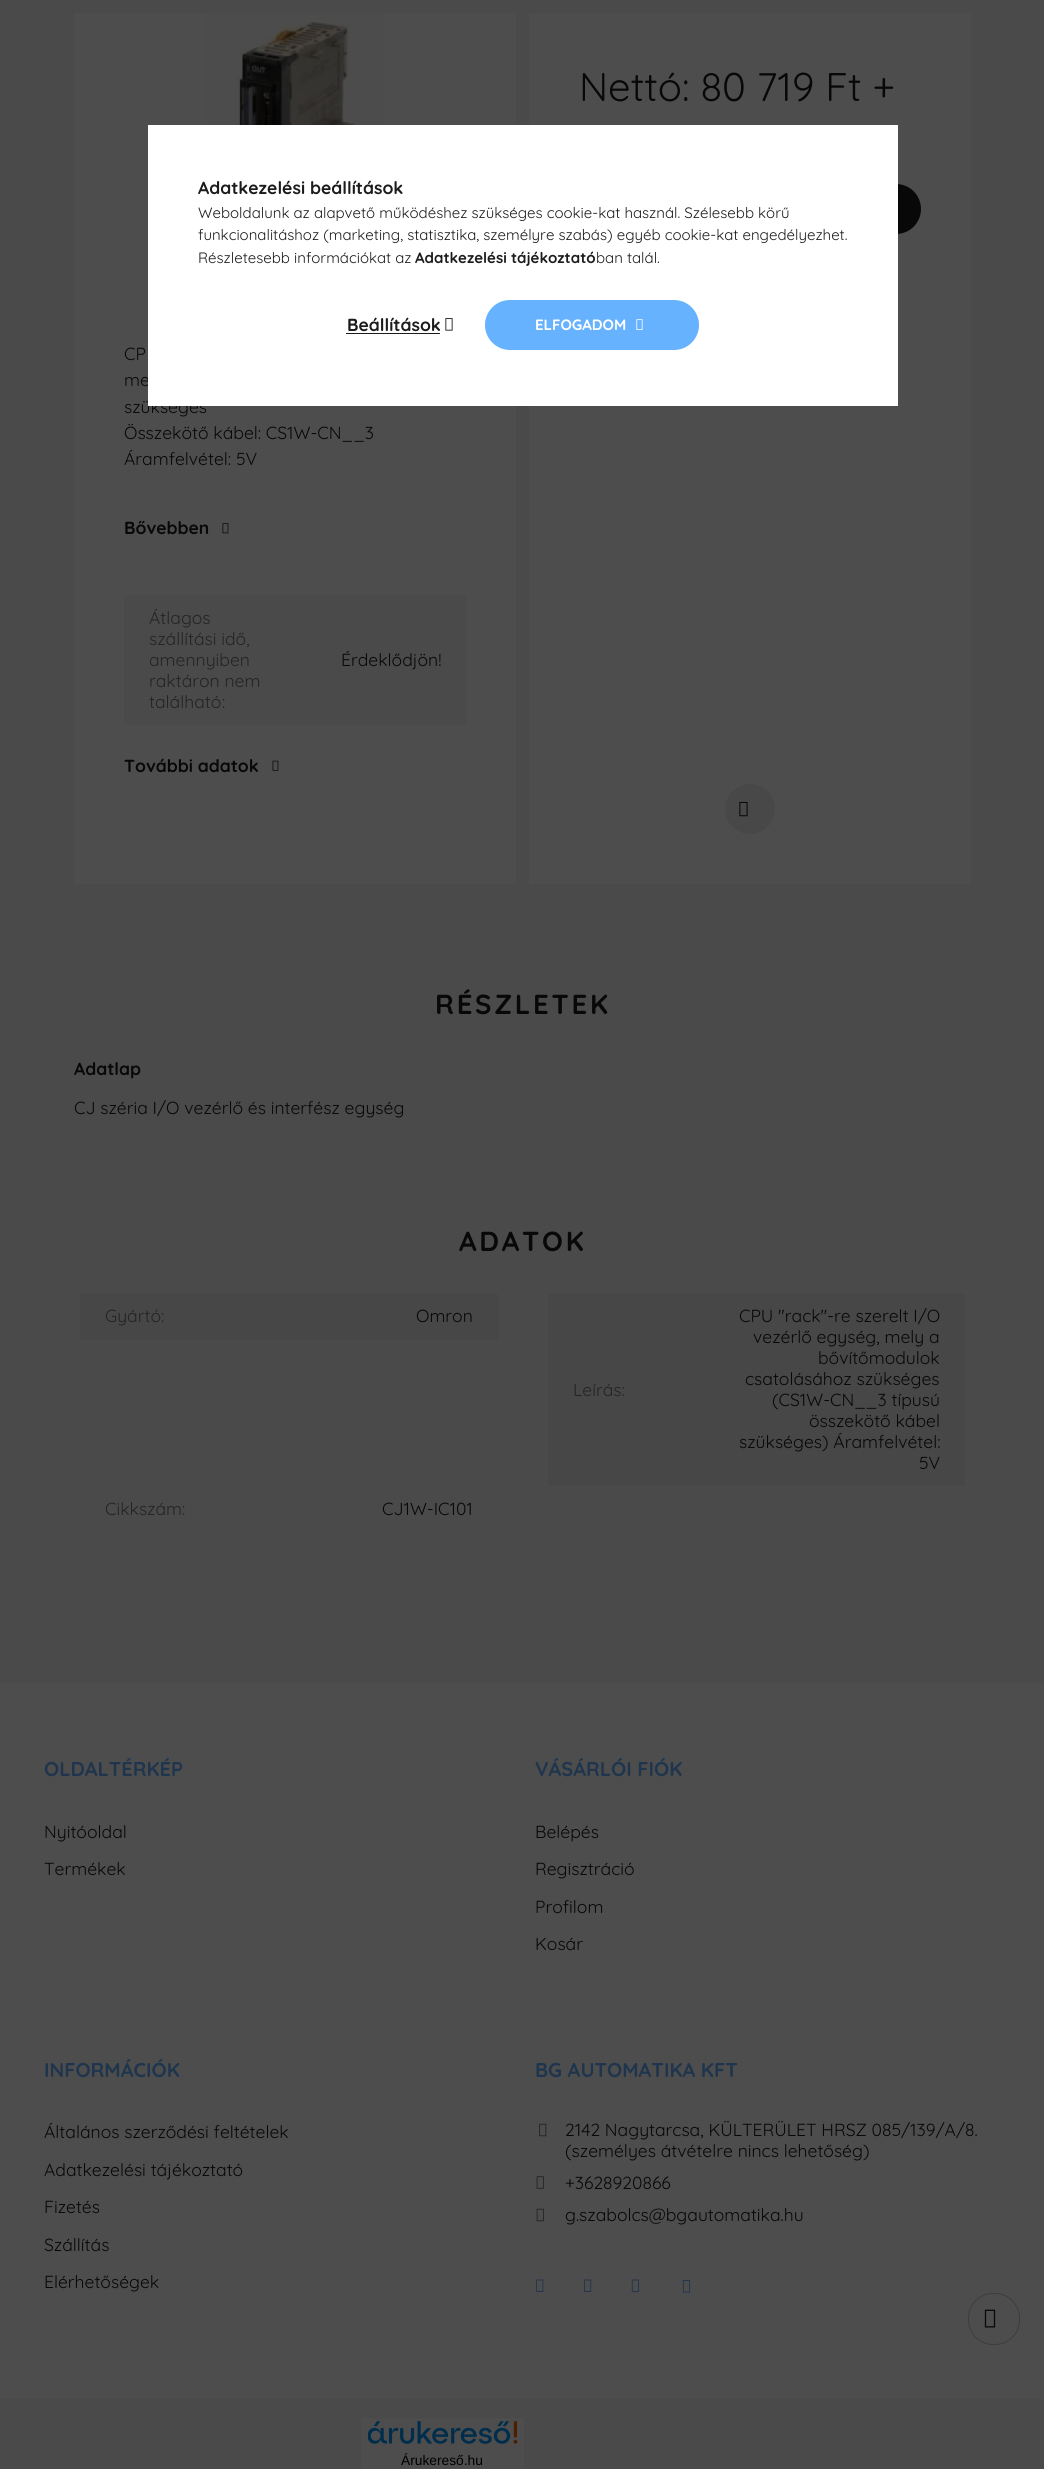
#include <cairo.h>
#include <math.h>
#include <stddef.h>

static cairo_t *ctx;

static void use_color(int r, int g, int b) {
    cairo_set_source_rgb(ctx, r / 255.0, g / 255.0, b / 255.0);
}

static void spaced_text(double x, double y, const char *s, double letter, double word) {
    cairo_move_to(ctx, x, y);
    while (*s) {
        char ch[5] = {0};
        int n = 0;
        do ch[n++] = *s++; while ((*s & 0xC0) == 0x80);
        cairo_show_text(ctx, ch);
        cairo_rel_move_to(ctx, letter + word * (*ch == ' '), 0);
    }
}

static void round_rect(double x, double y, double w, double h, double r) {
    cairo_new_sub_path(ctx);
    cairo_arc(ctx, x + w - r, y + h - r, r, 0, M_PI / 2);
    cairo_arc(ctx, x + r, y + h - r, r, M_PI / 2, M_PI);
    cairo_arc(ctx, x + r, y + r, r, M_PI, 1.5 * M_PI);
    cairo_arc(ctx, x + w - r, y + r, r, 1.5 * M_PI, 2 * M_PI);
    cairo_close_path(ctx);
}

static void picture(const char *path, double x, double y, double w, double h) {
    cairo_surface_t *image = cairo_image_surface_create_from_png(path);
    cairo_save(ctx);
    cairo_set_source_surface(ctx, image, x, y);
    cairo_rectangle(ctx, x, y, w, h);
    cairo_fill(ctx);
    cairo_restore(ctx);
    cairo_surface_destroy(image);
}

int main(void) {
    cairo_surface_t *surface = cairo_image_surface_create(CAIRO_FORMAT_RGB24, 1044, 2469);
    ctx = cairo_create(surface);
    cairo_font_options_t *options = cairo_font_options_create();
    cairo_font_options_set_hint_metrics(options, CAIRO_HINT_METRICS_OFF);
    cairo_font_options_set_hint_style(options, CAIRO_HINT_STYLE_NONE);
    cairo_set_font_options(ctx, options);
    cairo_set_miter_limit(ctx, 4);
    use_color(74, 74, 74);
    cairo_paint(ctx);
    use_color(77, 77, 77);
    cairo_rectangle(ctx, 529, 13, 442, 871);
    cairo_fill(ctx);
    cairo_select_font_face(ctx, "Quicksand", CAIRO_FONT_SLANT_NORMAL, CAIRO_FONT_WEIGHT_NORMAL);
    cairo_set_font_size(ctx, 40);
    use_color(8, 8, 8);
    cairo_move_to(ctx, 579, 101);
    cairo_show_text(ctx, "Nettó: 80 719 Ft +");
    round_rect(736, 184, 185, 50, 25);
    cairo_fill(ctx);
    use_color(72, 72, 72);
    cairo_arc(ctx, 750, 809, 25, 0, 2 * M_PI);
    cairo_fill(ctx);
    picture("img1.png", 739, 801, 9, 16);
    use_color(77, 77, 77);
    cairo_rectangle(ctx, 74, 13, 442, 871);
    cairo_fill(ctx);
    picture("img2.png", 205, 12, 180, 113);
    cairo_set_font_size(ctx, 17.5);
    use_color(8, 8, 8);
    spaced_text(124, 360, "CP", 0, 2);
    spaced_text(124, 386, "me", 0, 16);
    cairo_move_to(ctx, 124, 413);
    cairo_show_text(ctx, "szükséges");
    cairo_move_to(ctx, 124, 439);
    cairo_show_text(ctx, "Összekötő kábel: CS1W-CN__3");
    cairo_move_to(ctx, 124, 465);
    cairo_show_text(ctx, "Áramfelvétel: 5V");
    cairo_select_font_face(ctx, "Quicksand", CAIRO_FONT_SLANT_NORMAL, CAIRO_FONT_WEIGHT_BOLD);
    cairo_move_to(ctx, 124, 534);
    cairo_show_text(ctx, "Bővebben");
    picture("img3.png", 222, 523, 7, 11);
    use_color(74, 74, 74);
    cairo_rectangle(ctx, 124, 595, 342, 130);
    cairo_fill(ctx);
    cairo_select_font_face(ctx, "Quicksand", CAIRO_FONT_SLANT_NORMAL, CAIRO_FONT_WEIGHT_NORMAL);
    use_color(36, 36, 36);
    cairo_move_to(ctx, 149, 624);
    cairo_show_text(ctx, "Átlagos");
    cairo_move_to(ctx, 149, 645);
    cairo_show_text(ctx, "szállítási idő,");
    cairo_move_to(ctx, 149, 666);
    cairo_show_text(ctx, "amennyiben");
    cairo_move_to(ctx, 149, 687);
    cairo_show_text(ctx, "raktáron nem");
    cairo_move_to(ctx, 149, 708);
    cairo_show_text(ctx, "található");
    cairo_move_to(ctx, 222, 708);
    cairo_show_text(ctx, ":");
    use_color(8, 8, 8);
    cairo_move_to(ctx, 341, 666);
    cairo_show_text(ctx, "Érdeklődjön!");
    cairo_select_font_face(ctx, "Quicksand", CAIRO_FONT_SLANT_NORMAL, CAIRO_FONT_WEIGHT_BOLD);
    cairo_move_to(ctx, 124, 772);
    cairo_show_text(ctx, "További adatok");
    picture("img4.png", 272, 760, 7, 11);
    cairo_set_font_size(ctx, 27.5);
    spaced_text(435, 1014, "RÉSZLETEK", 2.75, 0);
    cairo_set_font_size(ctx, 17.5);
    cairo_move_to(ctx, 74, 1075);
    cairo_show_text(ctx, "Adatlap");
    cairo_select_font_face(ctx, "Quicksand", CAIRO_FONT_SLANT_NORMAL, CAIRO_FONT_WEIGHT_NORMAL);
    cairo_move_to(ctx, 74, 1114);
    cairo_show_text(ctx, "CJ széria I/O vezérlő és interfész egység");
    cairo_select_font_face(ctx, "Quicksand", CAIRO_FONT_SLANT_NORMAL, CAIRO_FONT_WEIGHT_BOLD);
    cairo_set_font_size(ctx, 27.5);
    spaced_text(459, 1251, "ADATOK", 2.75, 0);
    use_color(71, 71, 71);
    cairo_rectangle(ctx, 80, 1294, 418, 46);
    cairo_fill(ctx);
    cairo_select_font_face(ctx, "Quicksand", CAIRO_FONT_SLANT_NORMAL, CAIRO_FONT_WEIGHT_NORMAL);
    cairo_set_font_size(ctx, 17.5);
    use_color(36, 36, 36);
    cairo_move_to(ctx, 105, 1322);
    cairo_show_text(ctx, "Gyártó:");
    use_color(8, 8, 8);
    cairo_move_to(ctx, 416, 1322);
    cairo_show_text(ctx, "Omron");
    use_color(71, 71, 71);
    cairo_rectangle(ctx, 548, 1294, 417, 192);
    cairo_fill(ctx);
    use_color(36, 36, 36);
    cairo_move_to(ctx, 573, 1396);
    cairo_show_text(ctx, "Leírás:");
    use_color(8, 8, 8);
    cairo_move_to(ctx, 739, 1322);
    cairo_show_text(ctx, "CPU \"rack\"-re szerelt I/O");
    cairo_move_to(ctx, 753, 1343);
    cairo_show_text(ctx, "vezérlő egység, mely a");
    cairo_move_to(ctx, 818, 1364);
    cairo_show_text(ctx, "bővítőmodulok");
    cairo_move_to(ctx, 745, 1385);
    cairo_show_text(ctx, "csatolásához szükséges");
    cairo_move_to(ctx, 772, 1406);
    cairo_show_text(ctx, "(CS1W-CN__3 típusú");
    cairo_move_to(ctx, 809, 1427);
    cairo_show_text(ctx, "összekötő kábel");
    cairo_move_to(ctx, 739, 1448);
    cairo_show_text(ctx, "szükséges) Áramfelvétel:");
    cairo_move_to(ctx, 919, 1469);
    cairo_show_text(ctx, "5V");
    use_color(36, 36, 36);
    cairo_move_to(ctx, 105, 1515);
    cairo_show_text(ctx, "Cikkszám:");
    use_color(8, 8, 8);
    cairo_move_to(ctx, 382, 1515);
    cairo_show_text(ctx, "CJ1W-IC101");
    use_color(77, 77, 77);
    cairo_rectangle(ctx, 0, 1683, 1044, 716);
    cairo_fill(ctx);
    cairo_select_font_face(ctx, "Quicksand", CAIRO_FONT_SLANT_NORMAL, CAIRO_FONT_WEIGHT_BOLD);
    cairo_set_font_size(ctx, 20);
    use_color(31, 53, 77);
    cairo_move_to(ctx, 44, 1776);
    cairo_show_text(ctx, "OLDALTÉRKÉP");
    cairo_select_font_face(ctx, "Quicksand", CAIRO_FONT_SLANT_NORMAL, CAIRO_FONT_WEIGHT_NORMAL);
    cairo_set_font_size(ctx, 17.5);
    use_color(8, 8, 8);
    cairo_move_to(ctx, 44, 1838);
    cairo_show_text(ctx, "Nyitóoldal");
    cairo_move_to(ctx, 44, 1875);
    cairo_show_text(ctx, "Termékek");
    cairo_select_font_face(ctx, "Quicksand", CAIRO_FONT_SLANT_NORMAL, CAIRO_FONT_WEIGHT_BOLD);
    cairo_set_font_size(ctx, 20);
    use_color(31, 53, 77);
    cairo_move_to(ctx, 535, 1776);
    cairo_show_text(ctx, "VÁSÁRLÓI FIÓK");
    cairo_select_font_face(ctx, "Quicksand", CAIRO_FONT_SLANT_NORMAL, CAIRO_FONT_WEIGHT_NORMAL);
    cairo_set_font_size(ctx, 17.5);
    use_color(8, 8, 8);
    cairo_move_to(ctx, 535, 1838);
    cairo_show_text(ctx, "Belépés");
    cairo_move_to(ctx, 535, 1875);
    cairo_show_text(ctx, "Regisztráció");
    cairo_move_to(ctx, 535, 1913);
    cairo_show_text(ctx, "Profilom");
    cairo_move_to(ctx, 535, 1950);
    cairo_show_text(ctx, "Kosár");
    cairo_select_font_face(ctx, "Quicksand", CAIRO_FONT_SLANT_NORMAL, CAIRO_FONT_WEIGHT_BOLD);
    cairo_set_font_size(ctx, 20);
    use_color(31, 53, 77);
    cairo_move_to(ctx, 44, 2077);
    cairo_show_text(ctx, "INFORMÁCIÓK");
    cairo_select_font_face(ctx, "Quicksand", CAIRO_FONT_SLANT_NORMAL, CAIRO_FONT_WEIGHT_NORMAL);
    cairo_set_font_size(ctx, 17.5);
    use_color(8, 8, 8);
    cairo_move_to(ctx, 44, 2138);
    cairo_show_text(ctx, "Általános szerződési feltételek");
    cairo_move_to(ctx, 44, 2176);
    cairo_show_text(ctx, "Adatkezelési tájékoztató");
    cairo_move_to(ctx, 44, 2213);
    cairo_show_text(ctx, "Fizetés");
    cairo_move_to(ctx, 44, 2251);
    cairo_show_text(ctx, "Szállítás");
    cairo_move_to(ctx, 44, 2288);
    cairo_show_text(ctx, "Elérhetőségek");
    cairo_select_font_face(ctx, "Quicksand", CAIRO_FONT_SLANT_NORMAL, CAIRO_FONT_WEIGHT_BOLD);
    cairo_set_font_size(ctx, 20);
    use_color(31, 53, 77);
    cairo_move_to(ctx, 535, 2077);
    cairo_show_text(ctx, "BG AUTOMATIKA KFT");
    picture("img5.png", 539, 2123, 8, 14);
    cairo_select_font_face(ctx, "Quicksand", CAIRO_FONT_SLANT_NORMAL, CAIRO_FONT_WEIGHT_NORMAL);
    cairo_set_font_size(ctx, 17.5);
    use_color(8, 8, 8);
    cairo_move_to(ctx, 565, 2136);
    cairo_show_text(ctx, "2142 Nagytarcsa, KÜLTERÜLET HRSZ 085/139/A/8.");
    cairo_move_to(ctx, 565, 2157);
    cairo_show_text(ctx, "(személyes átvételre nincs lehetőség)");
    picture("img6.png", 536, 2176, 8, 13);
    cairo_move_to(ctx, 565, 2189);
    cairo_show_text(ctx, "+3628920866");
    picture("img7.png", 536, 2208, 8, 14);
    cairo_move_to(ctx, 565, 2221);
    cairo_show_text(ctx, "g.szabolcs@bgautomatika.hu");
    picture("img8.png", 536, 2279, 8, 13);
    picture("img9.png", 584, 2279, 8, 13);
    picture("img10.png", 631, 2279, 8, 13);
    picture("img11.png", 682, 2280, 9, 13);
    use_color(77, 77, 77);
    cairo_rectangle(ctx, 361, 2418, 163, 51);
    cairo_fill(ctx);
    picture("img12.png", 368, 2421, 150, 23);
    cairo_select_font_face(ctx, "Liberation Sans", CAIRO_FONT_SLANT_NORMAL, CAIRO_FONT_WEIGHT_NORMAL);
    cairo_set_font_size(ctx, 13.75);
    use_color(0, 0, 0);
    cairo_move_to(ctx, 401, 2465);
    cairo_show_text(ctx, "Árukereső.hu");
    use_color(255, 255, 255);
    cairo_rectangle(ctx, 148, 125, 750, 281);
    cairo_fill(ctx);
    cairo_select_font_face(ctx, "Quicksand", CAIRO_FONT_SLANT_NORMAL, CAIRO_FONT_WEIGHT_BOLD);
    cairo_set_font_size(ctx, 17.5);
    use_color(28, 28, 28);
    cairo_move_to(ctx, 198, 194);
    cairo_show_text(ctx, "Adatkezelési beállítások");
    cairo_select_font_face(ctx, "Quicksand", CAIRO_FONT_SLANT_NORMAL, CAIRO_FONT_WEIGHT_NORMAL);
    cairo_set_font_size(ctx, 15);
    cairo_move_to(ctx, 198, 218);
    cairo_show_text(ctx, "Weboldalunk az alapvető működéshez szükséges cookie-kat használ. Szélesebb körű");
    cairo_move_to(ctx, 198, 240);
    cairo_show_text(ctx, "funkcionalitáshoz (marketing, statisztika, személyre szabás) egyéb cookie-kat engedélyezhet.");
    cairo_move_to(ctx, 198, 263);
    cairo_show_text(ctx, "Részletesebb információkat az");
    cairo_select_font_face(ctx, "Quicksand", CAIRO_FONT_SLANT_NORMAL, CAIRO_FONT_WEIGHT_BOLD);
    cairo_move_to(ctx, 415, 263);
    cairo_show_text(ctx, "Adatkezelési tájékoztató");
    cairo_select_font_face(ctx, "Quicksand", CAIRO_FONT_SLANT_NORMAL, CAIRO_FONT_WEIGHT_NORMAL);
    cairo_move_to(ctx, 596, 263);
    cairo_show_text(ctx, "ban talál.");
    cairo_select_font_face(ctx, "Quicksand", CAIRO_FONT_SLANT_NORMAL, CAIRO_FONT_WEIGHT_BOLD);
    cairo_set_font_size(ctx, 17.5);
    cairo_move_to(ctx, 347, 331);
    cairo_show_text(ctx, "Beállítások");
    cairo_rectangle(ctx, 346, 333, 94, 1);
    cairo_fill(ctx);
    picture("img13.png", 445, 318, 8, 13);
    use_color(102, 178, 255);
    round_rect(485, 300, 214, 50, 25);
    cairo_fill(ctx);
    cairo_set_font_size(ctx, 15);
    use_color(255, 255, 255);
    cairo_move_to(ctx, 535, 330);
    cairo_show_text(ctx, "ELFOGADOM");
    picture("img14.png", 636, 319, 7, 11);
    round_rect(968.5, 2293.5, 51, 51, 24.5);
    use_color(61, 61, 61);
    cairo_set_line_width(ctx, 1);
    cairo_stroke(ctx);
    picture("img15.png", 984, 2309, 12, 19);
    cairo_surface_write_to_png(surface, "result.png");
    cairo_font_options_destroy(options);
    cairo_destroy(ctx);
    cairo_surface_destroy(surface);
    return 0;
}
